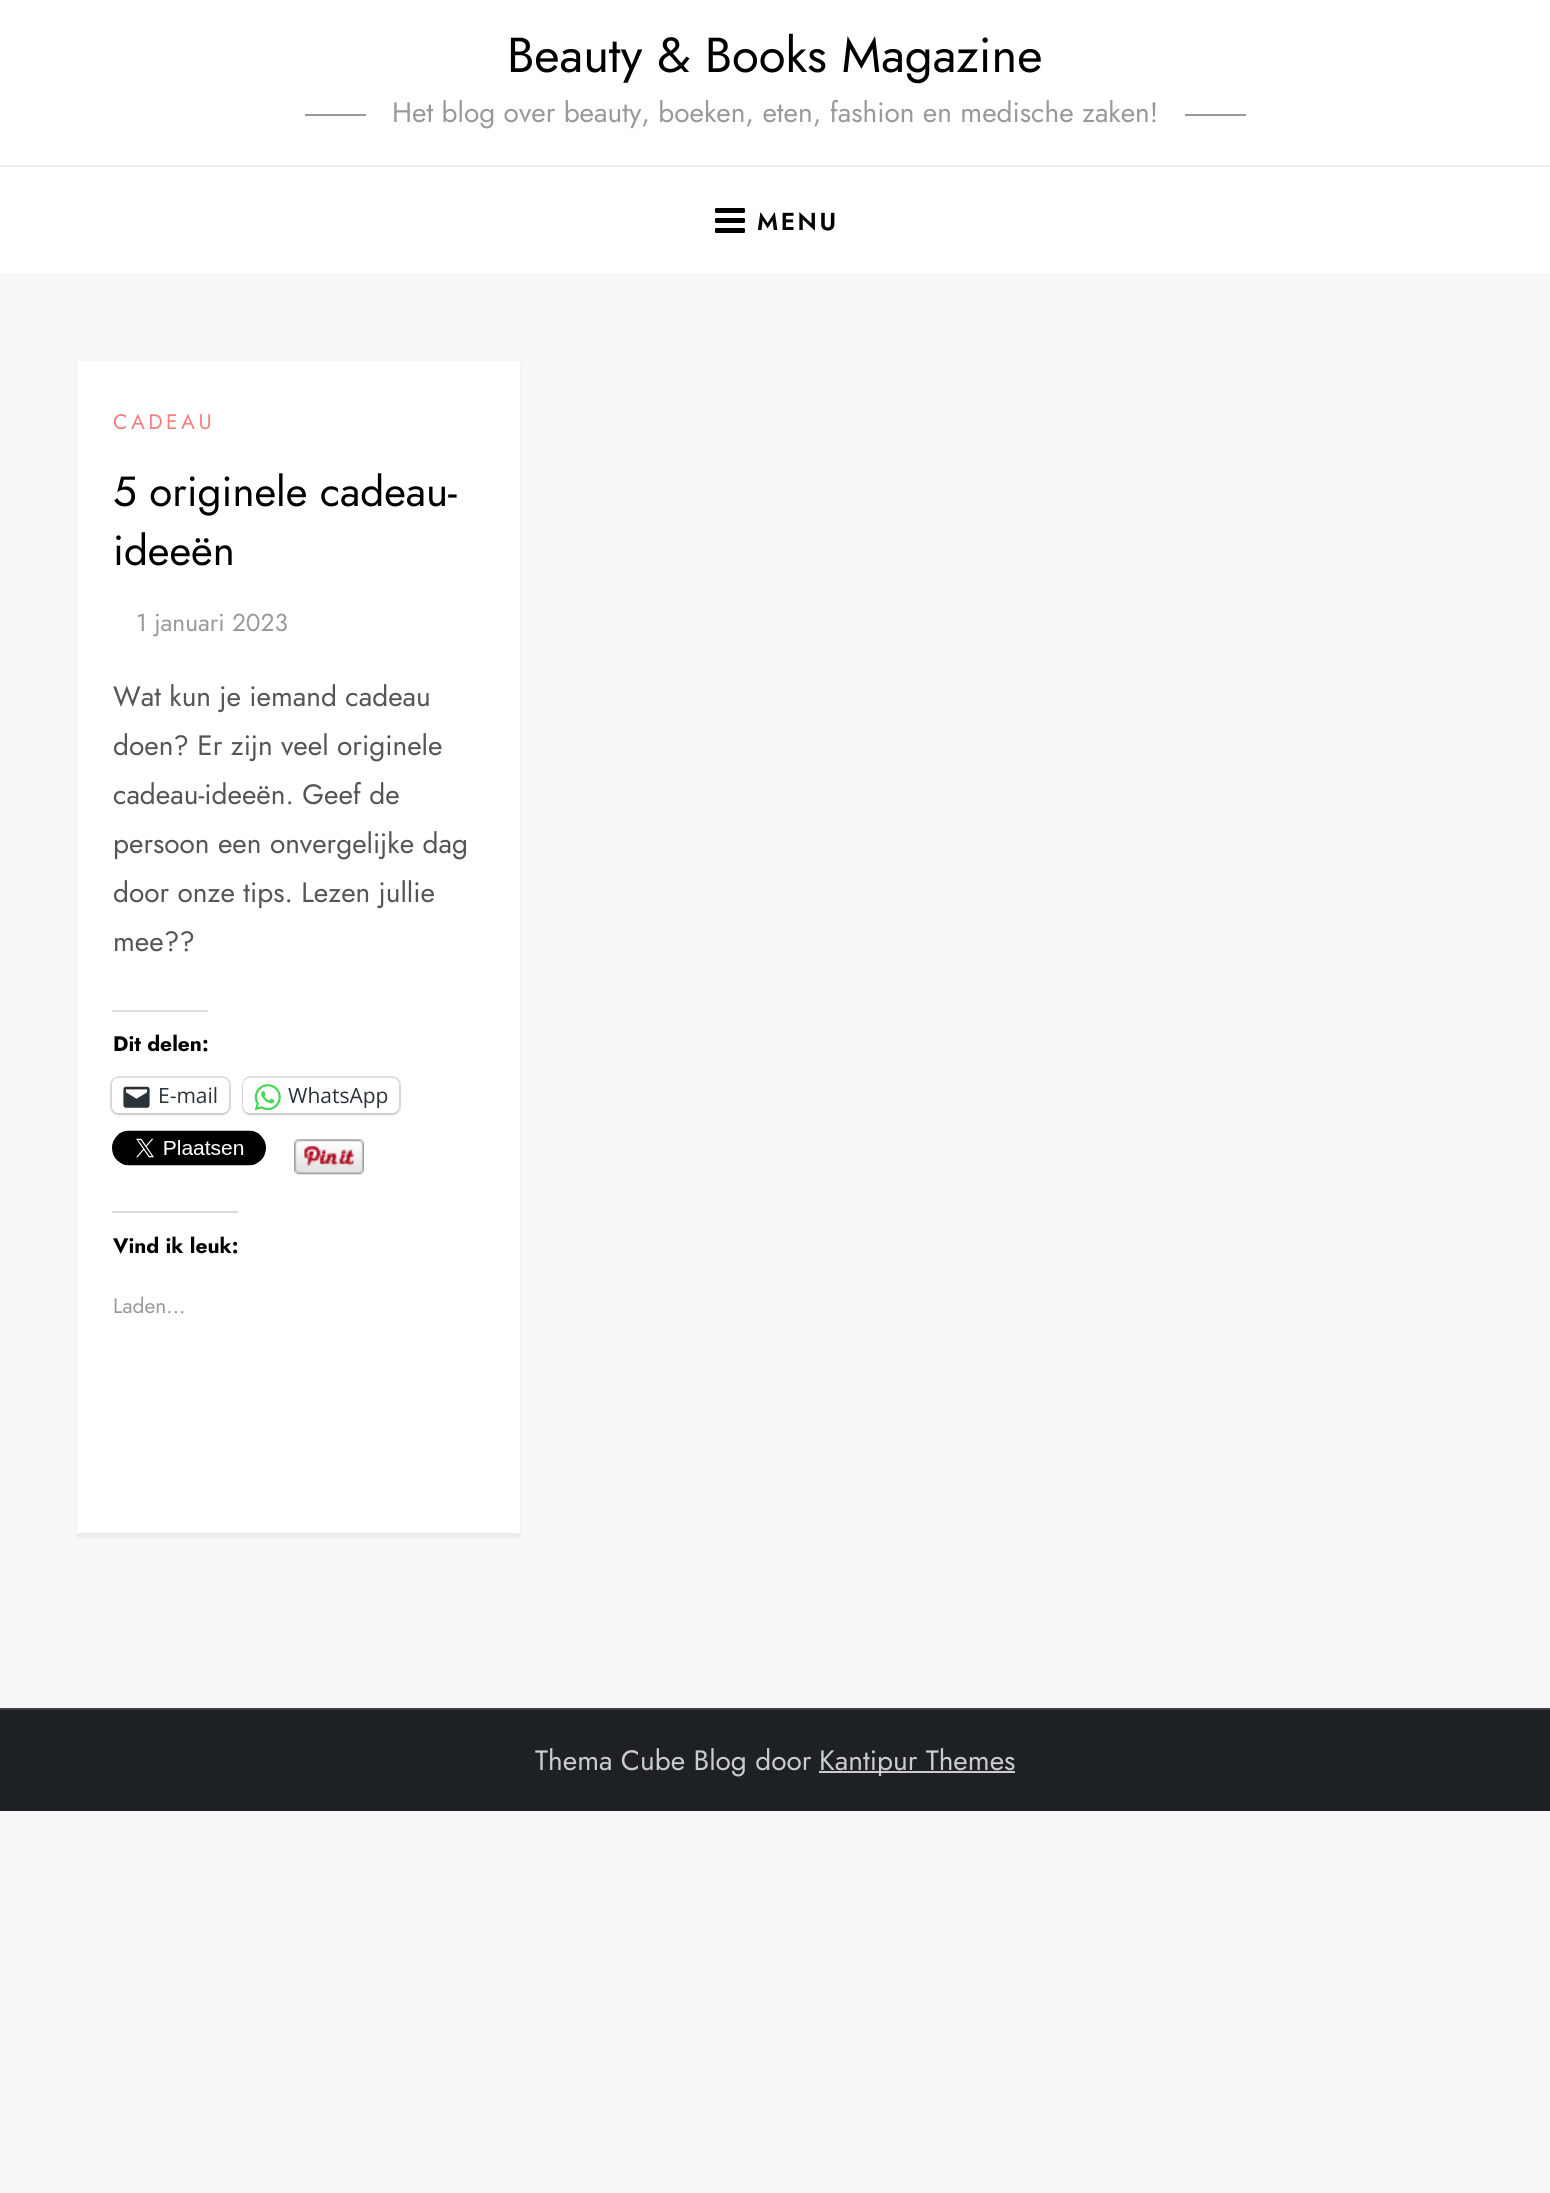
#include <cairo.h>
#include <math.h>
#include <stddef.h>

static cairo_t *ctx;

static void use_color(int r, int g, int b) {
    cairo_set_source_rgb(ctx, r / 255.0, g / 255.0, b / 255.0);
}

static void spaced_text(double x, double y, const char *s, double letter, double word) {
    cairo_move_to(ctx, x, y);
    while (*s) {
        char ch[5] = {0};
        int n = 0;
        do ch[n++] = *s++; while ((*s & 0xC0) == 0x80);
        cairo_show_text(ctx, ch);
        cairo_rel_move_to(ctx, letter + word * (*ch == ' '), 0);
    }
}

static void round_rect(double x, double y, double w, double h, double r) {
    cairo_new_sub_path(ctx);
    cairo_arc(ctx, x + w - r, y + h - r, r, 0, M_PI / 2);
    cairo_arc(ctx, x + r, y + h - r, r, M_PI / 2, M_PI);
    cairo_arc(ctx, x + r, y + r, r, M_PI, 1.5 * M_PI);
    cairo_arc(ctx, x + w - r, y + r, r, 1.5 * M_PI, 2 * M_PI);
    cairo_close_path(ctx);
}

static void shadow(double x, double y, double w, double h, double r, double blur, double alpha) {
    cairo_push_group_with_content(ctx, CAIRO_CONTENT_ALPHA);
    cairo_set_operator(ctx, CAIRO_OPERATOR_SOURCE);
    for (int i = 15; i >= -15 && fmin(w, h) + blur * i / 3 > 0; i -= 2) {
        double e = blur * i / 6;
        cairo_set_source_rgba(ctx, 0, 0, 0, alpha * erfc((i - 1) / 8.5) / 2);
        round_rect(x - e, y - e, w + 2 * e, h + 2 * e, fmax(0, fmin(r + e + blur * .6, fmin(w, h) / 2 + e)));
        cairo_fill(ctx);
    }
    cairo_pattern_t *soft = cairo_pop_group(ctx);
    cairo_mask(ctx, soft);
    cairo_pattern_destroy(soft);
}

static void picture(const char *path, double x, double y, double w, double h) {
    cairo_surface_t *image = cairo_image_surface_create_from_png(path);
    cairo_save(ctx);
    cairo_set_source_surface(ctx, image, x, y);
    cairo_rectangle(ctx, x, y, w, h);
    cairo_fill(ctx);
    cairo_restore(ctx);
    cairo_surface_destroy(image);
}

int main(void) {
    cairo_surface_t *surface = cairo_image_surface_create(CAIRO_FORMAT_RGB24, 1550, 2193);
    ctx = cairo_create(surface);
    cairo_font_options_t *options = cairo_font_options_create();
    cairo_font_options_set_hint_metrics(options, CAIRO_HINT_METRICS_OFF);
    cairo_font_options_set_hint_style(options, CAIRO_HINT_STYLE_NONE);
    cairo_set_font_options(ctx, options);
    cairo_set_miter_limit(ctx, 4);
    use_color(248, 248, 248);
    cairo_paint(ctx);
    use_color(255, 255, 255);
    cairo_rectangle(ctx, 0, 0, 1550, 273);
    cairo_fill(ctx);
    cairo_select_font_face(ctx, "Jost", CAIRO_FONT_SLANT_NORMAL, CAIRO_FONT_WEIGHT_NORMAL);
    cairo_set_font_size(ctx, 49);
    use_color(0, 0, 0);
    cairo_move_to(ctx, 507, 72);
    cairo_show_text(ctx, "Beauty & Books Magazine");
    use_color(153, 153, 153);
    cairo_rectangle(ctx, 305, 114, 61, 2);
    cairo_fill(ctx);
    cairo_set_font_size(ctx, 28);
    cairo_move_to(ctx, 392, 122);
    cairo_show_text(ctx, "Het blog over beauty, boeken, eten, fashion en medische zaken!");
    cairo_rectangle(ctx, 1185, 114, 61, 2);
    cairo_fill(ctx);
    use_color(238, 238, 238);
    cairo_rectangle(ctx, 0, 165, 1550, 2);
    cairo_fill(ctx);
    picture("img1.png", 715, 208, 30, 25);
    cairo_select_font_face(ctx, "Jost SemiBold", CAIRO_FONT_SLANT_NORMAL, CAIRO_FONT_WEIGHT_NORMAL);
    cairo_set_font_size(ctx, 24.5);
    use_color(0, 0, 0);
    spaced_text(757, 230, "MENU", 2.5, 0);
    use_color(0, 0, 0);
    shadow(77, 364, 443, 1173, 0, 2, 0.06);
    use_color(255, 255, 255);
    cairo_rectangle(ctx, 77, 361, 443, 1172);
    cairo_fill(ctx);
    cairo_select_font_face(ctx, "Jost", CAIRO_FONT_SLANT_NORMAL, CAIRO_FONT_WEIGHT_NORMAL);
    cairo_set_font_size(ctx, 21);
    use_color(243, 126, 126);
    spaced_text(113, 429, "CADEAU", 3.5, 0);
    cairo_set_font_size(ctx, 42);
    use_color(0, 0, 0);
    cairo_move_to(ctx, 113, 506);
    cairo_show_text(ctx, "5 originele cadeau-");
    cairo_move_to(ctx, 113, 565);
    cairo_show_text(ctx, "ideeën");
    cairo_set_font_size(ctx, 24.5);
    use_color(153, 153, 153);
    cairo_move_to(ctx, 136, 631);
    cairo_show_text(ctx, "1 januari 2023");
    cairo_set_font_size(ctx, 28);
    use_color(85, 85, 85);
    cairo_move_to(ctx, 113, 706);
    cairo_show_text(ctx, "Wat kun je iemand cadeau");
    cairo_move_to(ctx, 113, 755);
    cairo_show_text(ctx, "doen? Er zijn veel originele");
    cairo_move_to(ctx, 113, 804);
    cairo_show_text(ctx, "cadeau-ideeën. Geef de");
    cairo_move_to(ctx, 113, 853);
    cairo_show_text(ctx, "persoon een onvergelijke dag");
    cairo_move_to(ctx, 113, 902);
    cairo_show_text(ctx, "door onze tips. Lezen jullie");
    cairo_move_to(ctx, 113, 951);
    cairo_show_text(ctx, "mee?\077");
    use_color(220, 220, 222);
    cairo_rectangle(ctx, 112, 1010, 96, 2);
    cairo_fill(ctx);
    cairo_select_font_face(ctx, "Jost", CAIRO_FONT_SLANT_NORMAL, CAIRO_FONT_WEIGHT_BOLD);
    cairo_set_font_size(ctx, 21);
    use_color(0, 0, 0);
    cairo_move_to(ctx, 113, 1051);
    cairo_show_text(ctx, "Dit delen:");
    round_rect(111, 1077, 119, 37, 8);
    use_color(224, 224, 224);
    cairo_stroke(ctx);
    use_color(0, 0, 0);
    shadow(112, 1080, 117, 35, 7, 2, 0.12);
    use_color(255, 255, 255);
    round_rect(112, 1078, 117, 35, 7);
    cairo_fill(ctx);
    picture("img2.png", 123, 1086, 27, 22);
    cairo_select_font_face(ctx, "Open Sans", CAIRO_FONT_SLANT_NORMAL, CAIRO_FONT_WEIGHT_NORMAL);
    use_color(44, 51, 56);
    cairo_move_to(ctx, 158, 1103);
    cairo_show_text(ctx, "E-mail");
    round_rect(243, 1077, 157, 37, 8);
    use_color(224, 224, 224);
    cairo_stroke(ctx);
    use_color(0, 0, 0);
    shadow(243, 1080, 156, 35, 7, 2, 0.12);
    use_color(255, 255, 255);
    round_rect(243, 1078, 156, 35, 7);
    cairo_fill(ctx);
    picture("img3.png", 254, 1084, 27, 27);
    use_color(44, 51, 56);
    cairo_move_to(ctx, 288, 1103);
    cairo_show_text(ctx, "WhatsApp");
    picture("img4.png", 112, 1130, 154, 36);
    picture("img5.png", 294, 1139, 70, 36);
    use_color(220, 220, 222);
    cairo_rectangle(ctx, 112, 1211, 126, 2);
    cairo_fill(ctx);
    cairo_select_font_face(ctx, "Jost", CAIRO_FONT_SLANT_NORMAL, CAIRO_FONT_WEIGHT_BOLD);
    use_color(0, 0, 0);
    cairo_move_to(ctx, 113, 1253);
    cairo_show_text(ctx, "Vind ik leuk:");
    cairo_select_font_face(ctx, "Jost", CAIRO_FONT_SLANT_NORMAL, CAIRO_FONT_WEIGHT_NORMAL);
    use_color(153, 153, 153);
    cairo_move_to(ctx, 113, 1313);
    cairo_show_text(ctx, "Laden...");
    use_color(29, 32, 36);
    cairo_rectangle(ctx, 0, 1710, 1550, 101);
    cairo_fill(ctx);
    use_color(63, 65, 69);
    cairo_rectangle(ctx, 0, 1708, 1550, 2);
    cairo_fill(ctx);
    cairo_set_font_size(ctx, 28);
    use_color(204, 204, 204);
    cairo_move_to(ctx, 535, 1770);
    cairo_show_text(ctx, "Thema Cube Blog door");
    cairo_rectangle(ctx, 819, 1771, 196, 2);
    cairo_fill(ctx);
    cairo_move_to(ctx, 819, 1770);
    cairo_show_text(ctx, "Kantipur Themes");
    cairo_surface_write_to_png(surface, "result.png");
    cairo_font_options_destroy(options);
    cairo_destroy(ctx);
    cairo_surface_destroy(surface);
    return 0;
}
